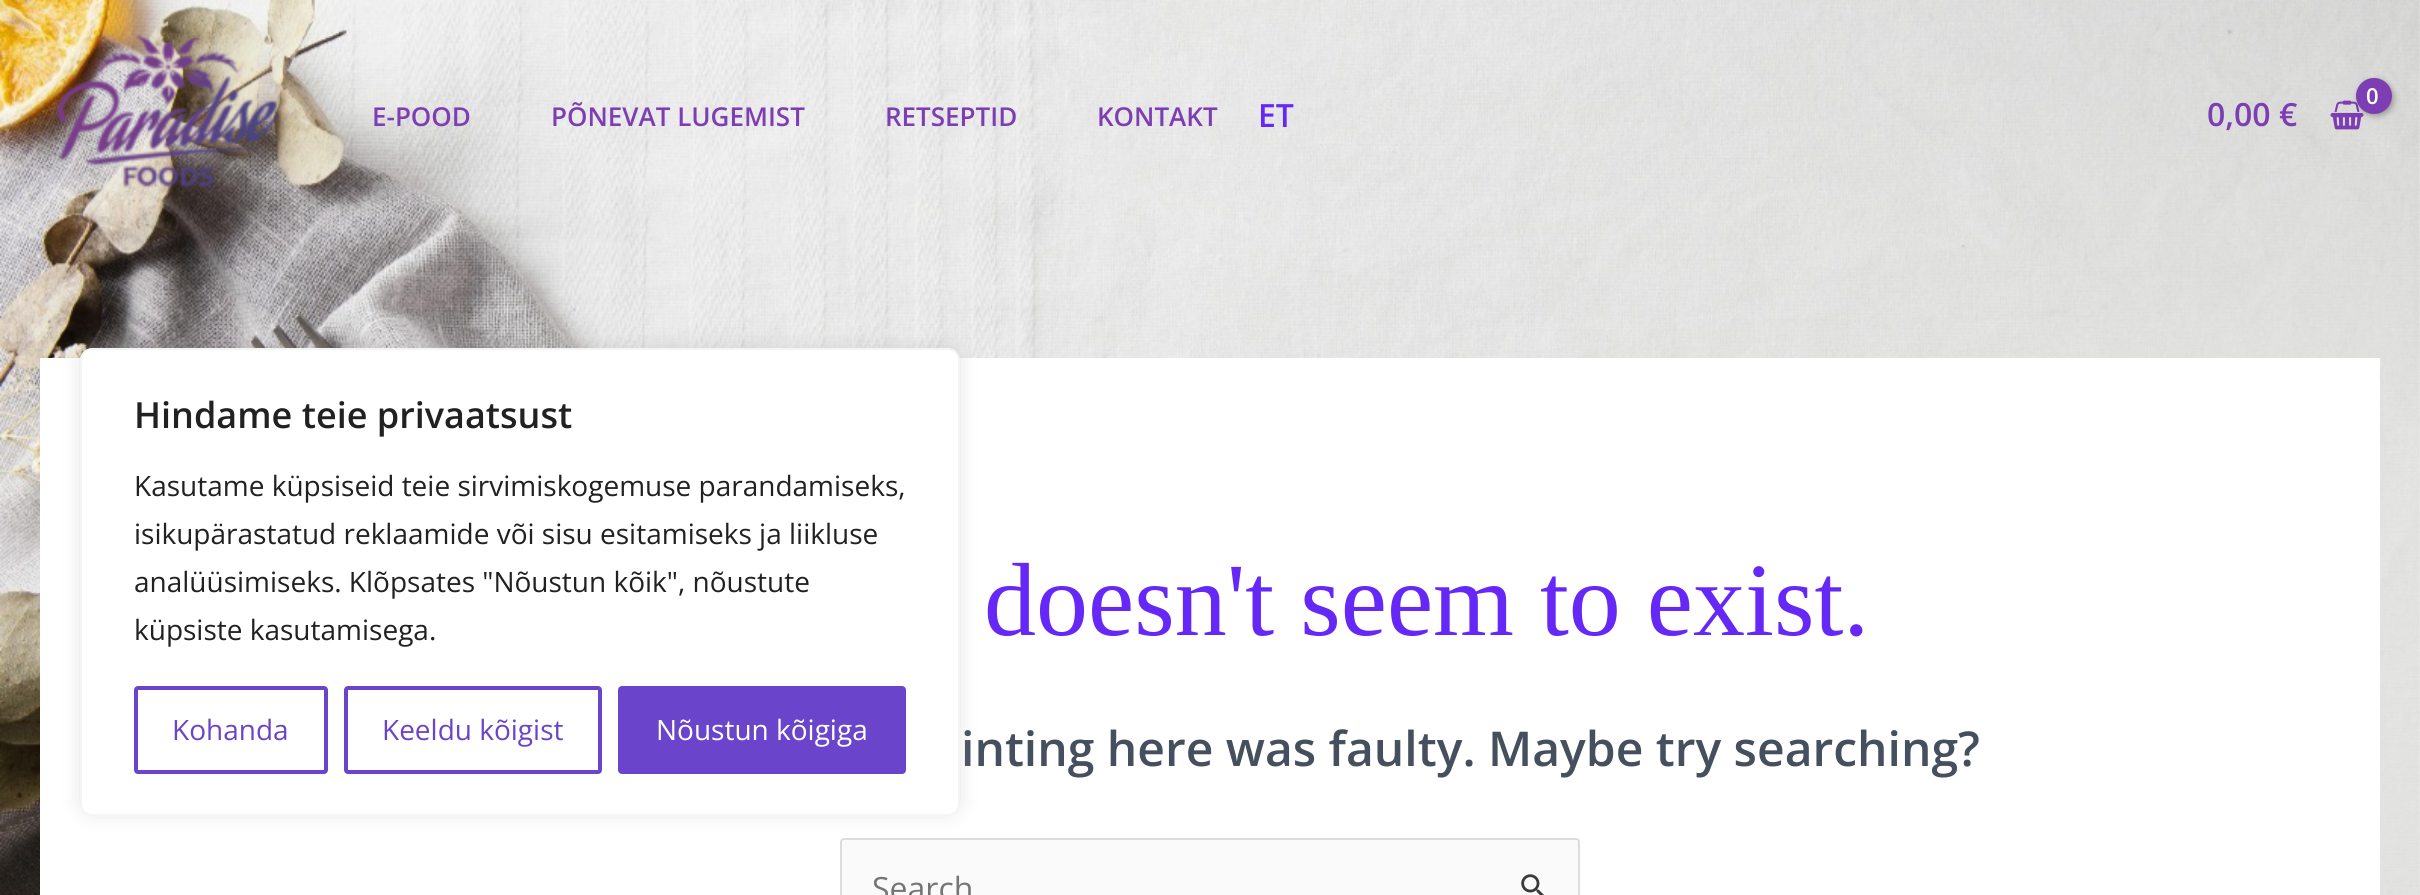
#include <cairo.h>
#include <math.h>
#include <stddef.h>

static cairo_t *ctx;

static void use_color(int r, int g, int b) {
    cairo_set_source_rgb(ctx, r / 255.0, g / 255.0, b / 255.0);
}

static void spaced_text(double x, double y, const char *s, double letter, double word) {
    cairo_move_to(ctx, x, y);
    while (*s) {
        char ch[5] = {0};
        int n = 0;
        do ch[n++] = *s++; while ((*s & 0xC0) == 0x80);
        cairo_show_text(ctx, ch);
        cairo_rel_move_to(ctx, letter + word * (*ch == ' '), 0);
    }
}

static void round_rect(double x, double y, double w, double h, double r) {
    cairo_new_sub_path(ctx);
    cairo_arc(ctx, x + w - r, y + h - r, r, 0, M_PI / 2);
    cairo_arc(ctx, x + r, y + h - r, r, M_PI / 2, M_PI);
    cairo_arc(ctx, x + r, y + r, r, M_PI, 1.5 * M_PI);
    cairo_arc(ctx, x + w - r, y + r, r, 1.5 * M_PI, 2 * M_PI);
    cairo_close_path(ctx);
}

static void shadow(double x, double y, double w, double h, double r, double blur, double alpha) {
    cairo_push_group_with_content(ctx, CAIRO_CONTENT_ALPHA);
    cairo_set_operator(ctx, CAIRO_OPERATOR_SOURCE);
    for (int i = 15; i >= -15 && fmin(w, h) + blur * i / 3 > 0; i -= 2) {
        double e = blur * i / 6;
        cairo_set_source_rgba(ctx, 0, 0, 0, alpha * erfc((i - 1) / 8.5) / 2);
        round_rect(x - e, y - e, w + 2 * e, h + 2 * e, fmax(0, fmin(r + e + blur * .6, fmin(w, h) / 2 + e)));
        cairo_fill(ctx);
    }
    cairo_pattern_t *soft = cairo_pop_group(ctx);
    cairo_mask(ctx, soft);
    cairo_pattern_destroy(soft);
}

static void picture(const char *path, double x, double y, double w, double h) {
    cairo_surface_t *image = cairo_image_surface_create_from_png(path);
    cairo_save(ctx);
    cairo_set_source_surface(ctx, image, x, y);
    cairo_rectangle(ctx, x, y, w, h);
    cairo_fill(ctx);
    cairo_restore(ctx);
    cairo_surface_destroy(image);
}

int main(void) {
    cairo_surface_t *surface = cairo_image_surface_create(CAIRO_FORMAT_RGB24, 2420, 895);
    ctx = cairo_create(surface);
    cairo_font_options_t *options = cairo_font_options_create();
    cairo_font_options_set_hint_metrics(options, CAIRO_HINT_METRICS_OFF);
    cairo_font_options_set_hint_style(options, CAIRO_HINT_STYLE_NONE);
    cairo_set_font_options(ctx, options);
    cairo_set_miter_limit(ctx, 4);
    use_color(255, 255, 255);
    cairo_paint(ctx);
    picture("img1.png", 0, 0, 2420, 895);
    picture("img2.png", 55, 34, 225, 155);
    cairo_select_font_face(ctx, "Open Sans SemiBold", CAIRO_FONT_SLANT_NORMAL, CAIRO_FONT_WEIGHT_NORMAL);
    cairo_set_font_size(ctx, 26);
    use_color(125, 62, 179);
    cairo_move_to(ctx, 372, 126);
    cairo_show_text(ctx, "E-POOD");
    cairo_move_to(ctx, 551, 126);
    cairo_show_text(ctx, "PÕNEVAT LUGEMIST");
    cairo_move_to(ctx, 885, 126);
    cairo_show_text(ctx, "RETSEPTID");
    cairo_move_to(ctx, 1097, 126);
    cairo_show_text(ctx, "KONTAKT");
    cairo_set_font_size(ctx, 32);
    use_color(101, 40, 247);
    cairo_move_to(ctx, 1258, 127);
    cairo_show_text(ctx, "ET");
    picture("img3.png", 2330, 100, 34, 30);
    use_color(0, 0, 0);
    shadow(2358, 80, 36, 36, 18, 3, 0.3);
    use_color(125, 62, 179);
    cairo_arc(ctx, 2374, 96, 18, 0, 2 * M_PI);
    cairo_fill(ctx);
    cairo_set_font_size(ctx, 22);
    use_color(255, 255, 255);
    spaced_text(2366, 104, "0", -1, 0);
    cairo_set_font_size(ctx, 32);
    use_color(125, 62, 179);
    cairo_move_to(ctx, 2207, 126);
    cairo_show_text(ctx, "0,00 €");
    use_color(255, 255, 255);
    cairo_rectangle(ctx, 40, 358, 2340, 537);
    cairo_fill(ctx);
    cairo_select_font_face(ctx, "Liberation Serif", CAIRO_FONT_SLANT_NORMAL, CAIRO_FONT_WEIGHT_NORMAL);
    cairo_set_font_size(ctx, 104);
    use_color(101, 40, 247);
    cairo_move_to(ctx, 984, 635);
    cairo_show_text(ctx, "doesn't seem to exist.");
    cairo_select_font_face(ctx, "Open Sans SemiBold", CAIRO_FONT_SLANT_NORMAL, CAIRO_FONT_WEIGHT_NORMAL);
    cairo_set_font_size(ctx, 48);
    use_color(69, 79, 94);
    cairo_move_to(ctx, 961, 766);
    cairo_show_text(ctx, "inting here was faulty. Maybe try searching?");
    use_color(250, 250, 250);
    round_rect(841, 839, 738, 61, 3);
    cairo_fill_preserve(ctx);
    use_color(221, 221, 221);
    cairo_stroke(ctx);
    cairo_select_font_face(ctx, "Open Sans", CAIRO_FONT_SLANT_NORMAL, CAIRO_FONT_WEIGHT_NORMAL);
    cairo_set_font_size(ctx, 32);
    use_color(117, 117, 117);
    cairo_move_to(ctx, 872, 900);
    cairo_show_text(ctx, "Search");
    picture("img4.png", 1521, 874, 23, 21);
    use_color(172, 171, 171);
    shadow(80, 346, 880, 468, 12, 10, 0.3);
    use_color(255, 255, 255);
    round_rect(81, 349, 878, 466, 11);
    cairo_fill_preserve(ctx);
    use_color(244, 244, 244);
    cairo_stroke(ctx);
    cairo_select_font_face(ctx, "Open Sans SemiBold", CAIRO_FONT_SLANT_NORMAL, CAIRO_FONT_WEIGHT_NORMAL);
    cairo_set_font_size(ctx, 36);
    use_color(33, 33, 33);
    cairo_move_to(ctx, 134, 428);
    cairo_show_text(ctx, "Hindame teie privaatsust");
    cairo_select_font_face(ctx, "Open Sans", CAIRO_FONT_SLANT_NORMAL, CAIRO_FONT_WEIGHT_NORMAL);
    cairo_set_font_size(ctx, 28);
    cairo_move_to(ctx, 134, 496);
    cairo_show_text(ctx, "Kasutame küpsiseid teie sirvimiskogemuse parandamiseks,");
    cairo_move_to(ctx, 134, 544);
    cairo_show_text(ctx, "isikupärastatud reklaamide või sisu esitamiseks ja liikluse");
    cairo_move_to(ctx, 134, 592);
    cairo_show_text(ctx, "analüüsimiseks. Klõpsates \"Nõustun kõik\", nõustute");
    cairo_move_to(ctx, 134, 640);
    cairo_show_text(ctx, "küpsiste kasutamisega.");
    round_rect(136, 688, 190, 84, 2);
    use_color(106, 68, 202);
    cairo_set_line_width(ctx, 4);
    cairo_stroke(ctx);
    cairo_move_to(ctx, 172, 740);
    cairo_show_text(ctx, "Kohanda");
    round_rect(346, 688, 254, 84, 2);
    cairo_stroke(ctx);
    cairo_move_to(ctx, 382, 740);
    cairo_show_text(ctx, "Keeldu kõigist");
    round_rect(620, 688, 284, 84, 2);
    cairo_fill_preserve(ctx);
    cairo_stroke(ctx);
    use_color(255, 255, 255);
    cairo_move_to(ctx, 656, 740);
    cairo_show_text(ctx, "Nõustun kõigiga");
    cairo_surface_write_to_png(surface, "result.png");
    cairo_font_options_destroy(options);
    cairo_destroy(ctx);
    cairo_surface_destroy(surface);
    return 0;
}
